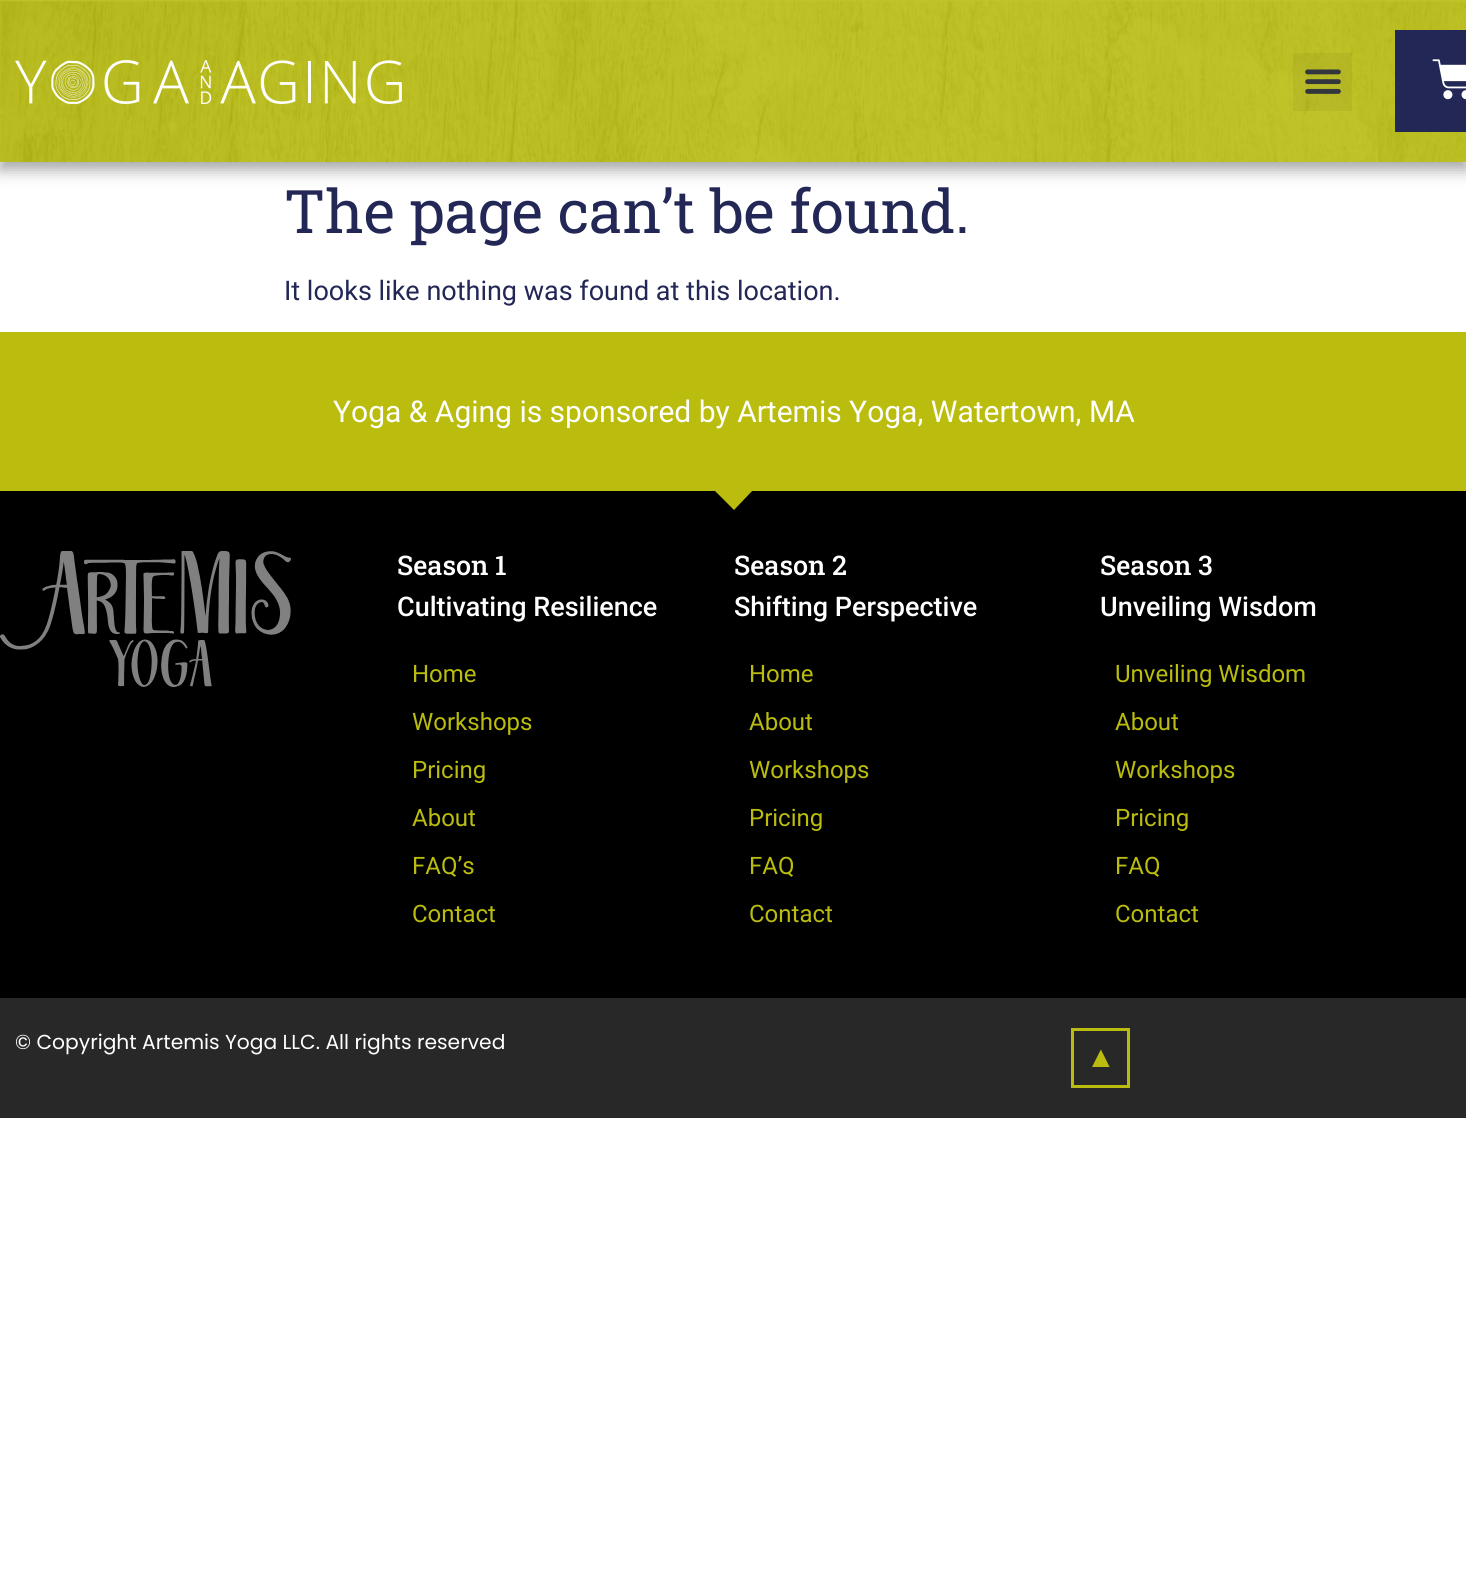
#include <cairo.h>
#include <math.h>
#include <stddef.h>

static cairo_t *ctx;

static void use_color(int r, int g, int b) {
    cairo_set_source_rgb(ctx, r / 255.0, g / 255.0, b / 255.0);
}

static void round_rect(double x, double y, double w, double h, double r) {
    cairo_new_sub_path(ctx);
    cairo_arc(ctx, x + w - r, y + h - r, r, 0, M_PI / 2);
    cairo_arc(ctx, x + r, y + h - r, r, M_PI / 2, M_PI);
    cairo_arc(ctx, x + r, y + r, r, M_PI, 1.5 * M_PI);
    cairo_arc(ctx, x + w - r, y + r, r, 1.5 * M_PI, 2 * M_PI);
    cairo_close_path(ctx);
}

static void shadow(double x, double y, double w, double h, double r, double blur, double alpha) {
    cairo_push_group_with_content(ctx, CAIRO_CONTENT_ALPHA);
    cairo_set_operator(ctx, CAIRO_OPERATOR_SOURCE);
    for (int i = 15; i >= -15 && fmin(w, h) + blur * i / 3 > 0; i -= 2) {
        double e = blur * i / 6;
        cairo_set_source_rgba(ctx, 0, 0, 0, alpha * erfc((i - 1) / 8.5) / 2);
        round_rect(x - e, y - e, w + 2 * e, h + 2 * e, fmax(0, fmin(r + e + blur * .6, fmin(w, h) / 2 + e)));
        cairo_fill(ctx);
    }
    cairo_pattern_t *soft = cairo_pop_group(ctx);
    cairo_mask(ctx, soft);
    cairo_pattern_destroy(soft);
}

static void picture(const char *path, double x, double y, double w, double h) {
    cairo_surface_t *image = cairo_image_surface_create_from_png(path);
    cairo_save(ctx);
    cairo_set_source_surface(ctx, image, x, y);
    cairo_rectangle(ctx, x, y, w, h);
    cairo_fill(ctx);
    cairo_restore(ctx);
    cairo_surface_destroy(image);
}

int main(void) {
    cairo_surface_t *surface = cairo_image_surface_create(CAIRO_FORMAT_RGB24, 1466, 1574);
    ctx = cairo_create(surface);
    cairo_font_options_t *options = cairo_font_options_create();
    cairo_font_options_set_hint_metrics(options, CAIRO_HINT_METRICS_OFF);
    cairo_font_options_set_hint_style(options, CAIRO_HINT_STYLE_NONE);
    cairo_set_font_options(ctx, options);
    cairo_set_miter_limit(ctx, 4);
    use_color(255, 255, 255);
    cairo_paint(ctx);
    use_color(0, 0, 0);
    shadow(0, 8, 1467, 162, 0, 7.5, 0.35);
    use_color(186, 189, 13);
    cairo_rectangle(ctx, 0, 0, 1466, 162);
    cairo_fill(ctx);
    picture("img1.png", 0, 0, 1466, 162);
    picture("img2.png", 15, 60, 387, 44);
    cairo_set_source_rgba(ctx, 0, 0, 0, 0.05);
    cairo_rectangle(ctx, 1293, 53, 59, 58);
    cairo_fill(ctx);
    picture("img3.png", 1305, 69, 36, 25);
    use_color(34, 39, 85);
    cairo_rectangle(ctx, 1395, 30, 71, 102);
    cairo_fill(ctx);
    picture("img4.png", 1432, 59, 34, 41);
    cairo_select_font_face(ctx, "Roboto Slab", CAIRO_FONT_SLANT_NORMAL, CAIRO_FONT_WEIGHT_NORMAL);
    cairo_set_font_size(ctx, 60);
    cairo_move_to(ctx, 284, 233);
    cairo_show_text(ctx, "The page can’t be found.");
    cairo_select_font_face(ctx, "Roboto", CAIRO_FONT_SLANT_NORMAL, CAIRO_FONT_WEIGHT_NORMAL);
    cairo_set_font_size(ctx, 27);
    cairo_move_to(ctx, 284, 300);
    cairo_show_text(ctx, "It looks like nothing was found at this location.");
    use_color(186, 189, 13);
    cairo_rectangle(ctx, 0, 332, 1466, 159);
    cairo_fill(ctx);
    cairo_set_font_size(ctx, 30);
    use_color(255, 255, 255);
    cairo_move_to(ctx, 333, 422);
    cairo_show_text(ctx, "Yoga & Aging is sponsored by Artemis Yoga, Watertown, MA");
    use_color(0, 0, 0);
    cairo_rectangle(ctx, 0, 491, 1466, 507);
    cairo_fill(ctx);
    use_color(186, 189, 13);
    cairo_new_path(ctx);
    cairo_move_to(ctx, 734, 510);
    cairo_line_to(ctx, 713, 489);
    cairo_line_to(ctx, 754, 489);
    cairo_close_path(ctx);
    cairo_fill(ctx);
    picture("img5.png", 0, 551, 291, 136);
    cairo_select_font_face(ctx, "Roboto Slab Medium", CAIRO_FONT_SLANT_NORMAL, CAIRO_FONT_WEIGHT_NORMAL);
    cairo_set_font_size(ctx, 27);
    use_color(255, 255, 255);
    cairo_move_to(ctx, 397, 575);
    cairo_show_text(ctx, "Season 1");
    cairo_select_font_face(ctx, "Roboto Medium", CAIRO_FONT_SLANT_NORMAL, CAIRO_FONT_WEIGHT_NORMAL);
    cairo_move_to(ctx, 397, 616);
    cairo_show_text(ctx, "Cultivating Resilience");
    cairo_select_font_face(ctx, "Roboto", CAIRO_FONT_SLANT_NORMAL, CAIRO_FONT_WEIGHT_NORMAL);
    cairo_set_font_size(ctx, 24);
    use_color(186, 189, 13);
    cairo_move_to(ctx, 412, 682);
    cairo_show_text(ctx, "Home");
    cairo_move_to(ctx, 412, 730);
    cairo_show_text(ctx, "Workshops");
    cairo_move_to(ctx, 412, 778);
    cairo_show_text(ctx, "Pricing");
    cairo_move_to(ctx, 412, 826);
    cairo_show_text(ctx, "About");
    cairo_move_to(ctx, 412, 874);
    cairo_show_text(ctx, "FAQ’s");
    cairo_move_to(ctx, 412, 922);
    cairo_show_text(ctx, "Contact");
    cairo_select_font_face(ctx, "Roboto Slab Medium", CAIRO_FONT_SLANT_NORMAL, CAIRO_FONT_WEIGHT_NORMAL);
    cairo_set_font_size(ctx, 27);
    use_color(255, 255, 255);
    cairo_move_to(ctx, 734, 575);
    cairo_show_text(ctx, "Season 2");
    cairo_select_font_face(ctx, "Roboto Medium", CAIRO_FONT_SLANT_NORMAL, CAIRO_FONT_WEIGHT_NORMAL);
    cairo_move_to(ctx, 734, 616);
    cairo_show_text(ctx, "Shifting Perspective");
    cairo_select_font_face(ctx, "Roboto", CAIRO_FONT_SLANT_NORMAL, CAIRO_FONT_WEIGHT_NORMAL);
    cairo_set_font_size(ctx, 24);
    use_color(186, 189, 13);
    cairo_move_to(ctx, 749, 682);
    cairo_show_text(ctx, "Home");
    cairo_move_to(ctx, 749, 730);
    cairo_show_text(ctx, "About");
    cairo_move_to(ctx, 749, 778);
    cairo_show_text(ctx, "Workshops");
    cairo_move_to(ctx, 749, 826);
    cairo_show_text(ctx, "Pricing");
    cairo_move_to(ctx, 749, 874);
    cairo_show_text(ctx, "FAQ");
    cairo_move_to(ctx, 749, 922);
    cairo_show_text(ctx, "Contact");
    cairo_select_font_face(ctx, "Roboto Slab Medium", CAIRO_FONT_SLANT_NORMAL, CAIRO_FONT_WEIGHT_NORMAL);
    cairo_set_font_size(ctx, 27);
    use_color(255, 255, 255);
    cairo_move_to(ctx, 1100, 575);
    cairo_show_text(ctx, "Season 3");
    cairo_select_font_face(ctx, "Roboto Medium", CAIRO_FONT_SLANT_NORMAL, CAIRO_FONT_WEIGHT_NORMAL);
    cairo_move_to(ctx, 1100, 616);
    cairo_show_text(ctx, "Unveiling Wisdom");
    cairo_select_font_face(ctx, "Roboto", CAIRO_FONT_SLANT_NORMAL, CAIRO_FONT_WEIGHT_NORMAL);
    cairo_set_font_size(ctx, 24);
    use_color(186, 189, 13);
    cairo_move_to(ctx, 1115, 682);
    cairo_show_text(ctx, "Unveiling Wisdom");
    cairo_move_to(ctx, 1115, 730);
    cairo_show_text(ctx, "About");
    cairo_move_to(ctx, 1115, 778);
    cairo_show_text(ctx, "Workshops");
    cairo_move_to(ctx, 1115, 826);
    cairo_show_text(ctx, "Pricing");
    cairo_move_to(ctx, 1115, 874);
    cairo_show_text(ctx, "FAQ");
    cairo_move_to(ctx, 1115, 922);
    cairo_show_text(ctx, "Contact");
    use_color(40, 40, 40);
    cairo_rectangle(ctx, 0, 998, 1466, 120);
    cairo_fill(ctx);
    cairo_select_font_face(ctx, "Poppins", CAIRO_FONT_SLANT_NORMAL, CAIRO_FONT_WEIGHT_NORMAL);
    cairo_set_font_size(ctx, 20.25);
    use_color(255, 255, 255);
    cairo_move_to(ctx, 15, 1049);
    cairo_show_text(ctx, "© Copyright Artemis Yoga LLC. All rights reserved");
    cairo_rectangle(ctx, 1072.5, 1029.5, 56, 57);
    use_color(186, 189, 13);
    cairo_set_line_width(ctx, 3);
    cairo_stroke(ctx);
    cairo_select_font_face(ctx, "Liberation Sans", CAIRO_FONT_SLANT_NORMAL, CAIRO_FONT_WEIGHT_NORMAL);
    cairo_set_font_size(ctx, 30);
    cairo_move_to(ctx, 1086, 1067);
    cairo_show_text(ctx, "▲");
    cairo_surface_write_to_png(surface, "result.png");
    cairo_font_options_destroy(options);
    cairo_destroy(ctx);
    cairo_surface_destroy(surface);
    return 0;
}
